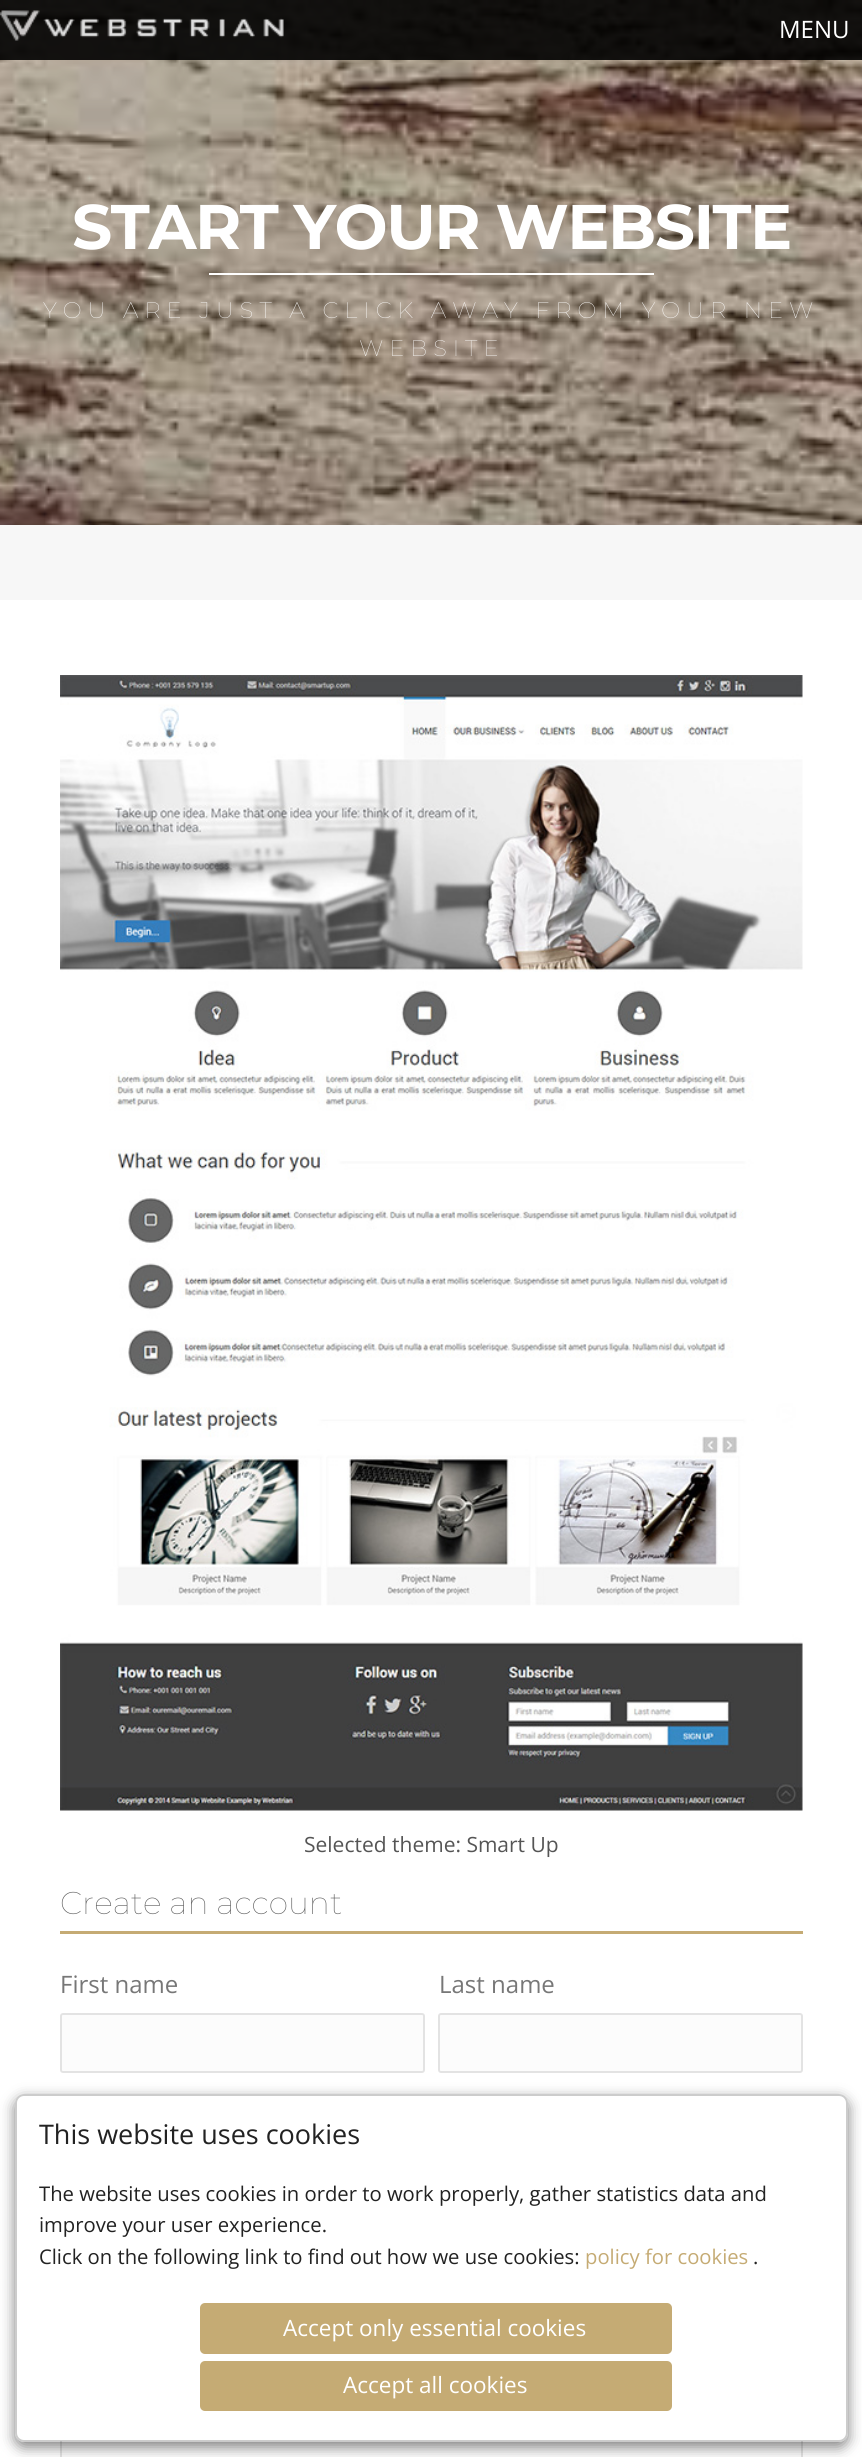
#include <cairo.h>
#include <math.h>
#include <stddef.h>

static cairo_t *ctx;

static void use_color(int r, int g, int b) {
    cairo_set_source_rgb(ctx, r / 255.0, g / 255.0, b / 255.0);
}

static void spaced_text(double x, double y, const char *s, double letter, double word) {
    cairo_move_to(ctx, x, y);
    while (*s) {
        char ch[5] = {0};
        int n = 0;
        do ch[n++] = *s++; while ((*s & 0xC0) == 0x80);
        cairo_show_text(ctx, ch);
        cairo_rel_move_to(ctx, letter + word * (*ch == ' '), 0);
    }
}

static void round_rect(double x, double y, double w, double h, double r) {
    cairo_new_sub_path(ctx);
    cairo_arc(ctx, x + w - r, y + h - r, r, 0, M_PI / 2);
    cairo_arc(ctx, x + r, y + h - r, r, M_PI / 2, M_PI);
    cairo_arc(ctx, x + r, y + r, r, M_PI, 1.5 * M_PI);
    cairo_arc(ctx, x + w - r, y + r, r, 1.5 * M_PI, 2 * M_PI);
    cairo_close_path(ctx);
}

static void shadow(double x, double y, double w, double h, double r, double blur, double alpha) {
    cairo_push_group_with_content(ctx, CAIRO_CONTENT_ALPHA);
    cairo_set_operator(ctx, CAIRO_OPERATOR_SOURCE);
    for (int i = 15; i >= -15 && fmin(w, h) + blur * i / 3 > 0; i -= 2) {
        double e = blur * i / 6;
        cairo_set_source_rgba(ctx, 0, 0, 0, alpha * erfc((i - 1) / 8.5) / 2);
        round_rect(x - e, y - e, w + 2 * e, h + 2 * e, fmax(0, fmin(r + e + blur * .6, fmin(w, h) / 2 + e)));
        cairo_fill(ctx);
    }
    cairo_pattern_t *soft = cairo_pop_group(ctx);
    cairo_mask(ctx, soft);
    cairo_pattern_destroy(soft);
}

static void picture(const char *path, double x, double y, double w, double h) {
    cairo_surface_t *image = cairo_image_surface_create_from_png(path);
    cairo_save(ctx);
    cairo_set_source_surface(ctx, image, x, y);
    cairo_rectangle(ctx, x, y, w, h);
    cairo_fill(ctx);
    cairo_restore(ctx);
    cairo_surface_destroy(image);
}

int main(void) {
    cairo_surface_t *surface = cairo_image_surface_create(CAIRO_FORMAT_RGB24, 862, 2457);
    ctx = cairo_create(surface);
    cairo_font_options_t *options = cairo_font_options_create();
    cairo_font_options_set_hint_metrics(options, CAIRO_HINT_METRICS_OFF);
    cairo_font_options_set_hint_style(options, CAIRO_HINT_STYLE_NONE);
    cairo_set_font_options(ctx, options);
    cairo_set_miter_limit(ctx, 4);
    use_color(247, 247, 247);
    cairo_paint(ctx);
    use_color(70, 68, 66);
    cairo_rectangle(ctx, 0, 0, 862, 525);
    cairo_fill(ctx);
    picture("img2.png", 0, 0, 862, 525);
    cairo_set_source_rgba(ctx, 0, 0, 0, 0.9);
    cairo_rectangle(ctx, 0, 0, 862, 60);
    cairo_fill(ctx);
    picture("img1.png", 0, 10, 284, 31);
    cairo_select_font_face(ctx, "Open Sans", CAIRO_FONT_SLANT_NORMAL, CAIRO_FONT_WEIGHT_NORMAL);
    cairo_set_font_size(ctx, 24);
    use_color(255, 255, 255);
    cairo_move_to(ctx, 779, 38);
    cairo_show_text(ctx, "MENU");
    cairo_select_font_face(ctx, "Montserrat", CAIRO_FONT_SLANT_NORMAL, CAIRO_FONT_WEIGHT_BOLD);
    cairo_set_font_size(ctx, 63);
    spaced_text(72, 249, "START YOUR WEBSITE", -1.5, 0);
    cairo_rectangle(ctx, 209, 273, 445, 2);
    cairo_fill(ctx);
    cairo_select_font_face(ctx, "Montserrat Thin", CAIRO_FONT_SLANT_NORMAL, CAIRO_FONT_WEIGHT_NORMAL);
    cairo_set_font_size(ctx, 22.5);
    spaced_text(43, 318, "YOU ARE JUST A CLICK AWAY FROM YOUR NEW", 6, 0);
    spaced_text(359, 356, "WEBSITE", 6, 0);
    cairo_rectangle(ctx, 0, 600, 862, 1857);
    cairo_fill(ctx);
    picture("img3.png", 60, 675, 743, 1136);
    cairo_select_font_face(ctx, "Open Sans", CAIRO_FONT_SLANT_NORMAL, CAIRO_FONT_WEIGHT_NORMAL);
    cairo_set_font_size(ctx, 21);
    use_color(85, 85, 85);
    cairo_move_to(ctx, 304, 1852);
    cairo_show_text(ctx, "Selected theme: Smart Up");
    cairo_select_font_face(ctx, "Montserrat Thin", CAIRO_FONT_SLANT_NORMAL, CAIRO_FONT_WEIGHT_NORMAL);
    cairo_set_font_size(ctx, 31.5);
    cairo_move_to(ctx, 60, 1914);
    cairo_show_text(ctx, "Create an account");
    use_color(197, 171, 116);
    cairo_rectangle(ctx, 60, 1931, 743, 3);
    cairo_fill(ctx);
    cairo_select_font_face(ctx, "Open Sans", CAIRO_FONT_SLANT_NORMAL, CAIRO_FONT_WEIGHT_NORMAL);
    cairo_set_font_size(ctx, 24);
    use_color(119, 119, 119);
    cairo_move_to(ctx, 60, 1993);
    cairo_show_text(ctx, "First name");
    use_color(252, 252, 252);
    round_rect(61, 2014, 363, 58, 2);
    cairo_fill_preserve(ctx);
    use_color(227, 227, 227);
    cairo_stroke(ctx);
    use_color(119, 119, 119);
    cairo_move_to(ctx, 439, 1993);
    cairo_show_text(ctx, "Last name");
    use_color(252, 252, 252);
    round_rect(439, 2014, 363, 58, 2);
    cairo_fill_preserve(ctx);
    use_color(227, 227, 227);
    cairo_stroke(ctx);
    use_color(252, 252, 252);
    cairo_rectangle(ctx, 62, 2441, 739, 16);
    cairo_fill(ctx);
    cairo_rectangle(ctx, 61, 2437, 741, 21);
    use_color(227, 227, 227);
    cairo_stroke(ctx);
    cairo_save(ctx);
    cairo_set_fill_rule(ctx, CAIRO_FILL_RULE_EVEN_ODD);
    cairo_new_path(ctx);
    cairo_move_to(ctx, 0, 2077);
    cairo_line_to(ctx, 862, 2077);
    cairo_line_to(ctx, 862, 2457);
    cairo_line_to(ctx, 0, 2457);
    cairo_close_path(ctx);
    cairo_move_to(ctx, 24, 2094);
    cairo_line_to(ctx, 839, 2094);
    cairo_curve_to(ctx, 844, 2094, 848, 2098, 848, 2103);
    cairo_line_to(ctx, 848, 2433);
    cairo_curve_to(ctx, 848, 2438, 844, 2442, 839, 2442);
    cairo_line_to(ctx, 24, 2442);
    cairo_curve_to(ctx, 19, 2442, 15, 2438, 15, 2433);
    cairo_line_to(ctx, 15, 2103);
    cairo_curve_to(ctx, 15, 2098, 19, 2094, 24, 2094);
    cairo_close_path(ctx);
    cairo_clip(ctx);
    use_color(0, 0, 0);
    shadow(15, 2099, 833, 348, 9, 7, 0.5);
    cairo_restore(ctx);
    use_color(255, 255, 255);
    round_rect(17, 2096, 829, 345, 8);
    cairo_fill(ctx);
    round_rect(16, 2095, 831, 346, 8);
    cairo_set_source_rgba(ctx, 0, 0, 0, 0.2);
    cairo_stroke(ctx);
    cairo_set_font_size(ctx, 27);
    use_color(34, 34, 34);
    cairo_move_to(ctx, 39, 2144);
    cairo_show_text(ctx, "This website uses cookies");
    cairo_set_font_size(ctx, 20.25);
    cairo_move_to(ctx, 39, 2201);
    cairo_show_text(ctx, "The website uses cookies in order to work properly, gather statistics data and");
    cairo_move_to(ctx, 39, 2232);
    cairo_show_text(ctx, "improve your user experience.");
    cairo_move_to(ctx, 39, 2264);
    cairo_show_text(ctx, "Click on the following link to find out how we use cookies:");
    use_color(197, 171, 116);
    cairo_move_to(ctx, 585, 2264);
    cairo_show_text(ctx, "policy for cookies");
    use_color(34, 34, 34);
    cairo_move_to(ctx, 753, 2264);
    cairo_show_text(ctx, ".");
    use_color(197, 171, 116);
    round_rect(200, 2303, 472, 51, 5);
    cairo_fill(ctx);
    cairo_set_font_size(ctx, 22.5);
    use_color(255, 255, 255);
    cairo_move_to(ctx, 283, 2336);
    cairo_show_text(ctx, "Accept only essential cookies");
    use_color(197, 171, 116);
    round_rect(200, 2361, 472, 50, 5);
    cairo_fill(ctx);
    use_color(255, 255, 255);
    cairo_move_to(ctx, 343, 2393);
    cairo_show_text(ctx, "Accept all cookies");
    cairo_surface_write_to_png(surface, "result.png");
    cairo_font_options_destroy(options);
    cairo_destroy(ctx);
    cairo_surface_destroy(surface);
    return 0;
}
